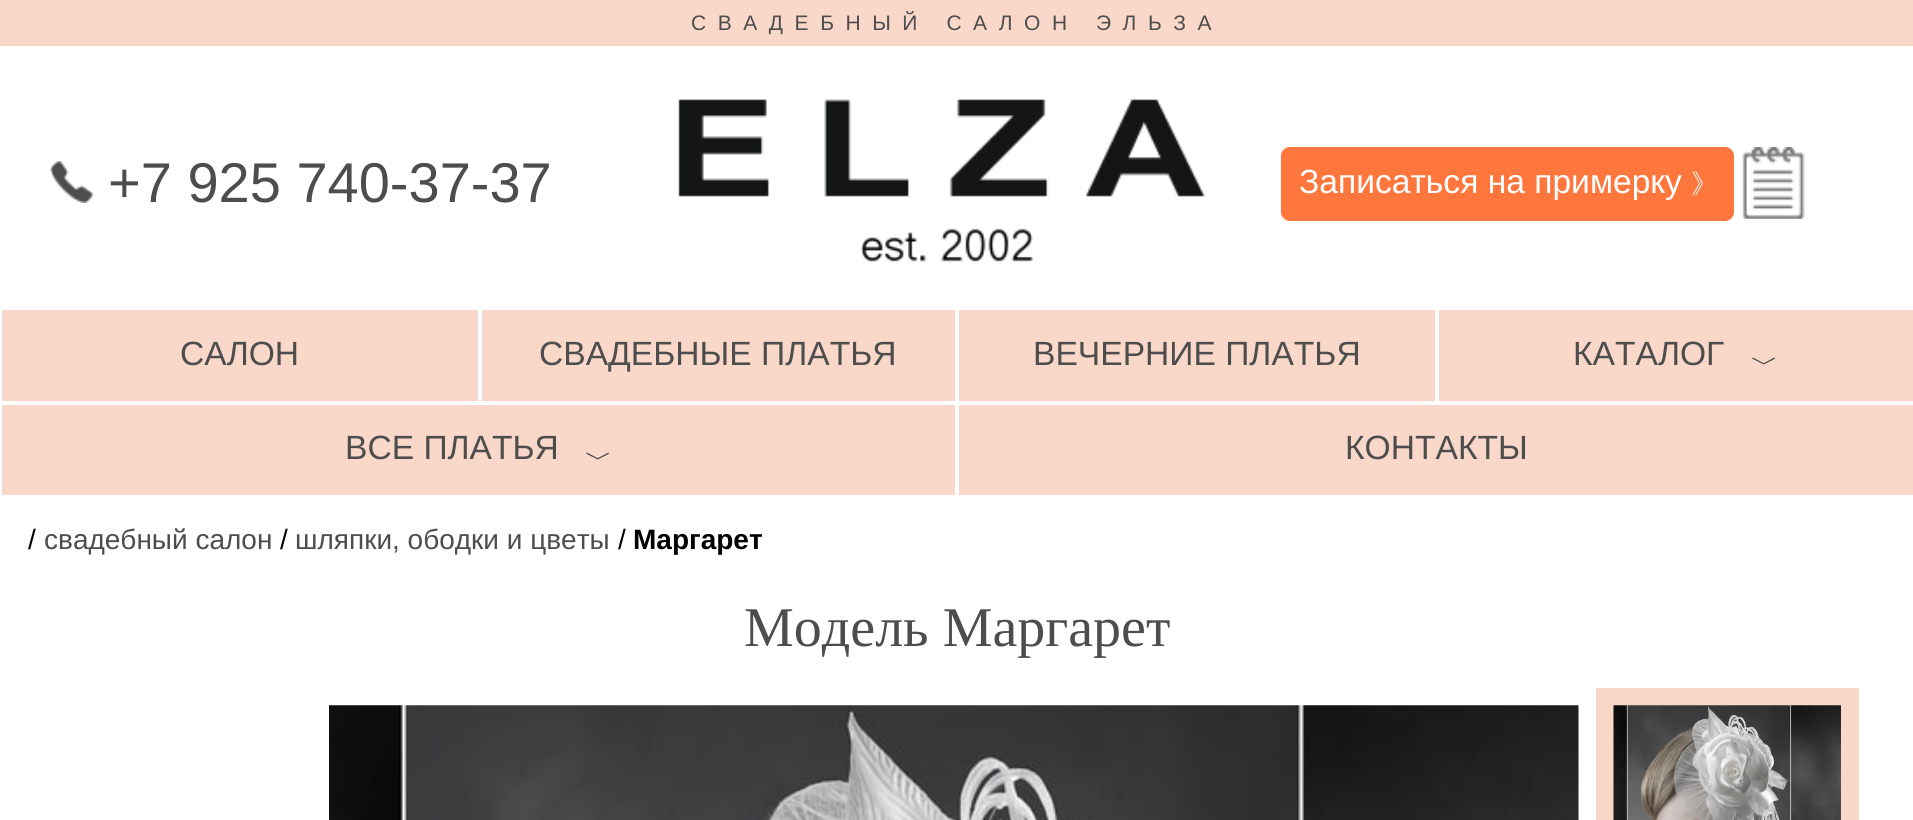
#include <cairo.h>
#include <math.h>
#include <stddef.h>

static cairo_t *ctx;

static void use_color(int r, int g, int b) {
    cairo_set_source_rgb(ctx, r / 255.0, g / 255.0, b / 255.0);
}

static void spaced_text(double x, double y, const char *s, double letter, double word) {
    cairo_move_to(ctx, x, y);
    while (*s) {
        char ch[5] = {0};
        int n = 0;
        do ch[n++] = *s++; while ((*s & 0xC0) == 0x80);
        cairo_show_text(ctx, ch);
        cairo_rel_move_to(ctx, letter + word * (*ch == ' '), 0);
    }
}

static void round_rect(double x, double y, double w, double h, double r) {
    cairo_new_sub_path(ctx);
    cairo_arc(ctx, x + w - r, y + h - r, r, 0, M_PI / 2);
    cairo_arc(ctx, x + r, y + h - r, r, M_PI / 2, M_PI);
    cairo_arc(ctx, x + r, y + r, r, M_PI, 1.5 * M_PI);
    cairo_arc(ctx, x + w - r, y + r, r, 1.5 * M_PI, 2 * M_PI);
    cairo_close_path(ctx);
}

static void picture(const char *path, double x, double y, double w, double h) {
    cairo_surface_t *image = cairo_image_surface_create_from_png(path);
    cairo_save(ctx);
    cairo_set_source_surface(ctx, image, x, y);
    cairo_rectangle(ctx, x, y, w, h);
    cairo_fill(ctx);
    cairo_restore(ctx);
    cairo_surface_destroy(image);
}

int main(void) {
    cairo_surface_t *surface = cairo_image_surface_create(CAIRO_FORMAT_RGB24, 1913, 820);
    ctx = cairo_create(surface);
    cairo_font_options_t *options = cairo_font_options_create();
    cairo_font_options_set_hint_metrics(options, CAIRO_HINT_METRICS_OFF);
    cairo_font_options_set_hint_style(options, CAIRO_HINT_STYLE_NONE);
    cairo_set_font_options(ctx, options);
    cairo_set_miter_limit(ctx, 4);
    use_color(255, 255, 255);
    cairo_paint(ctx);
    use_color(249, 216, 201);
    cairo_rectangle(ctx, 0, 0, 1913, 46);
    cairo_fill(ctx);
    cairo_select_font_face(ctx, "Liberation Sans", CAIRO_FONT_SLANT_NORMAL, CAIRO_FONT_WEIGHT_NORMAL);
    cairo_set_font_size(ctx, 21);
    use_color(77, 77, 77);
    spaced_text(691, 30, "СВАДЕБНЫЙ САЛОН ЭЛЬЗА", 11.55, 0);
    picture("img1.png", 50, 161, 43, 42);
    cairo_set_font_size(ctx, 56);
    cairo_move_to(ctx, 108, 202);
    cairo_show_text(ctx, "+7 925 740-37-37");
    picture("img2.png", 678, 99, 527, 163);
    use_color(255, 119, 60);
    round_rect(1281, 147, 453, 74, 9);
    cairo_fill(ctx);
    cairo_set_font_size(ctx, 33.6);
    use_color(255, 255, 255);
    cairo_move_to(ctx, 1299, 193);
    cairo_show_text(ctx, "Записаться на примерку");
    cairo_select_font_face(ctx, "WenQuanYi Zen Hei Medium", CAIRO_FONT_SLANT_NORMAL, CAIRO_FONT_WEIGHT_NORMAL);
    cairo_set_font_size(ctx, 27);
    cairo_move_to(ctx, 1691, 193);
    cairo_show_text(ctx, "》");
    picture("img3.png", 1742, 147, 63, 72);
    use_color(249, 216, 201);
    cairo_rectangle(ctx, 2, 310, 476, 91);
    cairo_fill(ctx);
    cairo_select_font_face(ctx, "Liberation Sans", CAIRO_FONT_SLANT_NORMAL, CAIRO_FONT_WEIGHT_NORMAL);
    cairo_set_font_size(ctx, 33.6);
    use_color(77, 77, 77);
    cairo_move_to(ctx, 180, 365);
    cairo_show_text(ctx, "САЛОН");
    use_color(249, 216, 201);
    cairo_rectangle(ctx, 482, 310, 473, 91);
    cairo_fill(ctx);
    use_color(77, 77, 77);
    cairo_move_to(ctx, 539, 365);
    cairo_show_text(ctx, "СВАДЕБНЫЕ ПЛАТЬЯ");
    use_color(249, 216, 201);
    cairo_rectangle(ctx, 959, 310, 476, 91);
    cairo_fill(ctx);
    use_color(77, 77, 77);
    cairo_move_to(ctx, 1033, 365);
    cairo_show_text(ctx, "ВЕЧЕРНИЕ ПЛАТЬЯ");
    use_color(249, 216, 201);
    cairo_rectangle(ctx, 1439, 310, 474, 91);
    cairo_fill(ctx);
    use_color(77, 77, 77);
    cairo_move_to(ctx, 1573, 365);
    cairo_show_text(ctx, "КАТАЛОГ");
    cairo_select_font_face(ctx, "WenQuanYi Zen Hei Medium", CAIRO_FONT_SLANT_NORMAL, CAIRO_FONT_WEIGHT_NORMAL);
    cairo_set_font_size(ctx, 27);
    cairo_move_to(ctx, 1751, 373);
    cairo_show_text(ctx, "﹀");
    use_color(249, 216, 201);
    cairo_rectangle(ctx, 2, 405, 953, 90);
    cairo_fill(ctx);
    cairo_select_font_face(ctx, "Liberation Sans", CAIRO_FONT_SLANT_NORMAL, CAIRO_FONT_WEIGHT_NORMAL);
    cairo_set_font_size(ctx, 33.6);
    use_color(77, 77, 77);
    cairo_move_to(ctx, 345, 459);
    cairo_show_text(ctx, "ВСЕ ПЛАТЬЯ");
    cairo_select_font_face(ctx, "WenQuanYi Zen Hei Medium", CAIRO_FONT_SLANT_NORMAL, CAIRO_FONT_WEIGHT_NORMAL);
    cairo_set_font_size(ctx, 27);
    cairo_move_to(ctx, 585, 468);
    cairo_show_text(ctx, "﹀");
    use_color(249, 216, 201);
    cairo_rectangle(ctx, 959, 405, 954, 90);
    cairo_fill(ctx);
    cairo_select_font_face(ctx, "Liberation Sans", CAIRO_FONT_SLANT_NORMAL, CAIRO_FONT_WEIGHT_NORMAL);
    cairo_set_font_size(ctx, 33.6);
    use_color(77, 77, 77);
    cairo_move_to(ctx, 1345, 459);
    cairo_show_text(ctx, "КОНТАКТЫ");
    cairo_set_font_size(ctx, 28);
    use_color(0, 0, 0);
    cairo_move_to(ctx, 28, 549);
    cairo_show_text(ctx, "/");
    use_color(77, 77, 77);
    cairo_move_to(ctx, 44, 549);
    cairo_show_text(ctx, "свадебный салон");
    use_color(0, 0, 0);
    cairo_move_to(ctx, 280, 549);
    cairo_show_text(ctx, "/");
    use_color(77, 77, 77);
    cairo_move_to(ctx, 295, 549);
    cairo_show_text(ctx, "шляпки, ободки и цветы");
    use_color(0, 0, 0);
    cairo_move_to(ctx, 618, 549);
    cairo_show_text(ctx, "/");
    cairo_select_font_face(ctx, "Liberation Sans", CAIRO_FONT_SLANT_NORMAL, CAIRO_FONT_WEIGHT_BOLD);
    cairo_move_to(ctx, 633, 549);
    cairo_show_text(ctx, "Маргарет");
    cairo_select_font_face(ctx, "Liberation Serif", CAIRO_FONT_SLANT_NORMAL, CAIRO_FONT_WEIGHT_NORMAL);
    cairo_set_font_size(ctx, 56);
    use_color(77, 77, 77);
    cairo_move_to(ctx, 744, 646);
    cairo_show_text(ctx, "Модель Маргарет");
    picture("img4.png", 329, 705, 1250, 115);
    cairo_rectangle(ctx, 1605, 697, 245, 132);
    use_color(249, 216, 201);
    cairo_set_line_width(ctx, 18);
    cairo_stroke(ctx);
    picture("img5.png", 1613, 705, 228, 115);
    cairo_surface_write_to_png(surface, "result.png");
    cairo_font_options_destroy(options);
    cairo_destroy(ctx);
    cairo_surface_destroy(surface);
    return 0;
}
